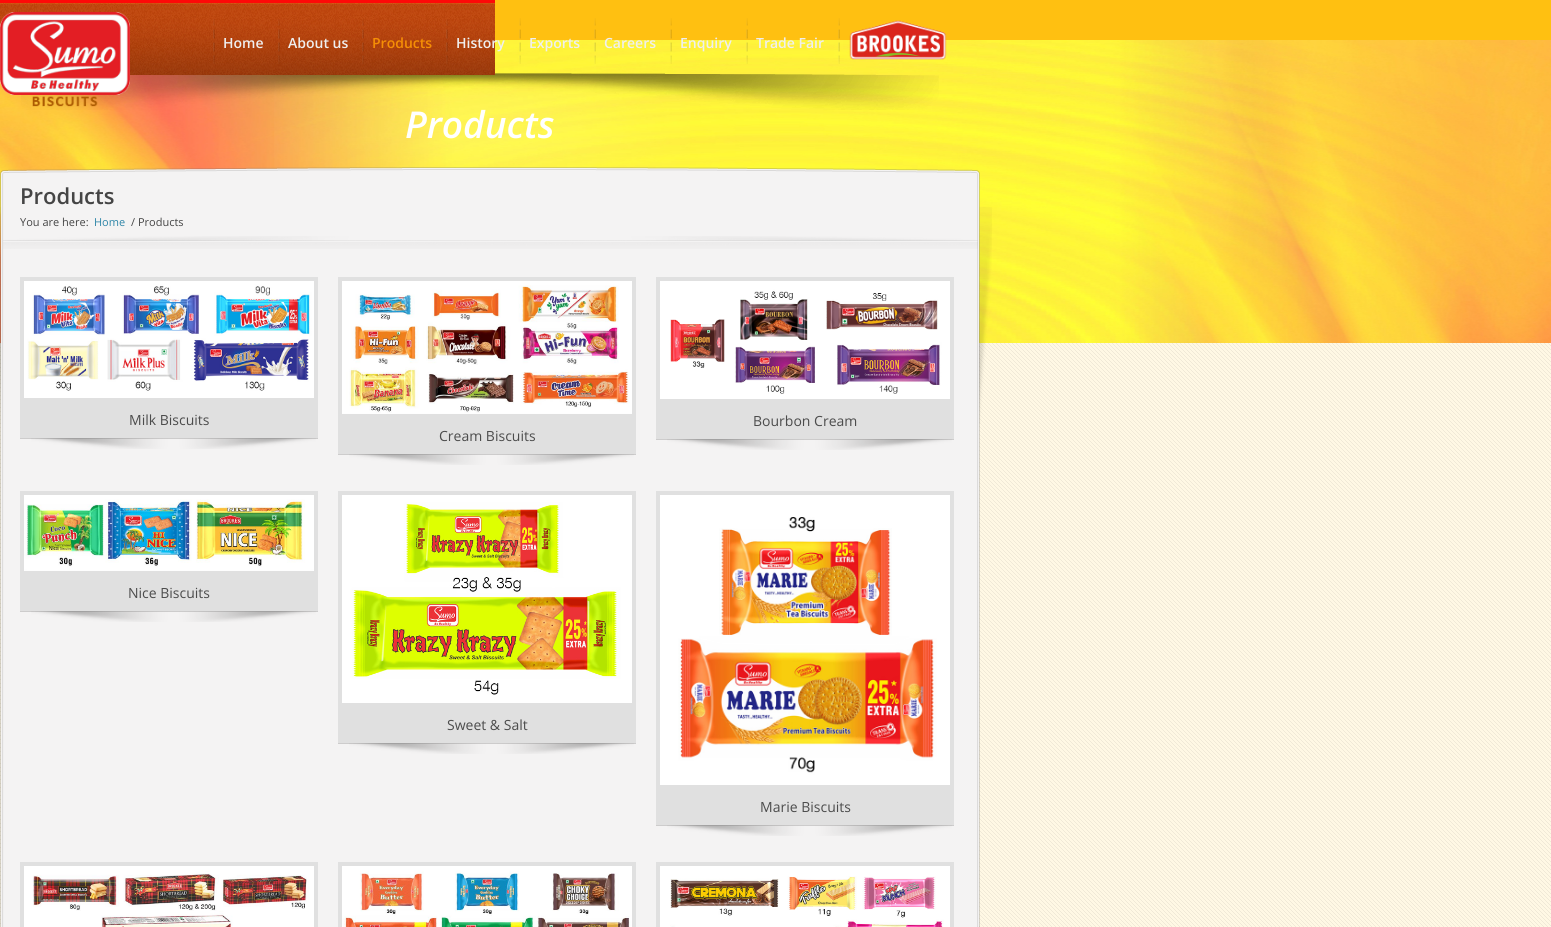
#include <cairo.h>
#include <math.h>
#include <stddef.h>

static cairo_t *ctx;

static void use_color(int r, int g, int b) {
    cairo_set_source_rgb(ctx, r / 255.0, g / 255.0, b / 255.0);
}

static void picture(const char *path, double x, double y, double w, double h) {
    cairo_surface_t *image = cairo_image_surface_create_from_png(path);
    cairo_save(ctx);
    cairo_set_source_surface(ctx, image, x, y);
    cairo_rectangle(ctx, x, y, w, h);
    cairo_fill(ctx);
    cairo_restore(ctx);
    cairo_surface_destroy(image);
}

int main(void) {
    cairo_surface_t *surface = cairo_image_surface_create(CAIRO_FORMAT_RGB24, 1551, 927);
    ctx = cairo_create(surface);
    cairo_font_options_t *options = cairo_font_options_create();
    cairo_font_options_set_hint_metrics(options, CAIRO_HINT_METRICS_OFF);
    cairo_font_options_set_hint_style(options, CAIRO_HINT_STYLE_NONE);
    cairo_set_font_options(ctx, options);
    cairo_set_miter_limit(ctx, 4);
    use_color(255, 248, 228);
    cairo_paint(ctx);
    picture("img1.png", 0, 343, 1551, 584);
    use_color(255, 192, 17);
    cairo_rectangle(ctx, 495, 0, 1056, 40);
    cairo_fill(ctx);
    picture("img2.png", 0, 40, 1551, 303);
    use_color(254, 9, 8);
    cairo_rectangle(ctx, 0, 0, 495, 3);
    cairo_fill(ctx);
    picture("img15.png", 21, 73, 918, 37);
    picture("img3.png", 0, 3, 495, 72);
    picture("img4.png", 0, 12, 130, 95);
    picture("img5.png", 213, 19, 2, 45);
    cairo_select_font_face(ctx, "Open Sans SemiBold", CAIRO_FONT_SLANT_NORMAL, CAIRO_FONT_WEIGHT_NORMAL);
    cairo_set_font_size(ctx, 14);
    use_color(239, 239, 239);
    cairo_move_to(ctx, 223, 48);
    cairo_show_text(ctx, "Home");
    picture("img6.png", 278, 19, 2, 45);
    cairo_move_to(ctx, 288, 48);
    cairo_show_text(ctx, "About us");
    picture("img7.png", 362, 19, 2, 45);
    use_color(245, 142, 5);
    cairo_move_to(ctx, 372, 48);
    cairo_show_text(ctx, "Products");
    picture("img8.png", 446, 19, 2, 45);
    use_color(239, 239, 239);
    cairo_move_to(ctx, 456, 48);
    cairo_show_text(ctx, "History");
    picture("img9.png", 519, 18, 2, 46);
    cairo_move_to(ctx, 529, 48);
    cairo_show_text(ctx, "Exports");
    picture("img10.png", 594, 18, 2, 46);
    cairo_move_to(ctx, 604, 48);
    cairo_show_text(ctx, "Careers");
    picture("img11.png", 670, 18, 2, 46);
    cairo_move_to(ctx, 680, 48);
    cairo_show_text(ctx, "Enquiry");
    picture("img12.png", 746, 18, 2, 46);
    cairo_move_to(ctx, 756, 48);
    cairo_show_text(ctx, "Trade Fair");
    picture("img13.png", 838, 18, 2, 46);
    picture("img14.png", 849, 20, 98, 40);
    picture("img17.png", 0, 167, 980, 7);
    picture("img16.png", 274, 81, 416, 87);
    cairo_select_font_face(ctx, "Open Sans SemiBold", CAIRO_FONT_SLANT_ITALIC, CAIRO_FONT_WEIGHT_NORMAL);
    cairo_set_font_size(ctx, 37);
    use_color(255, 255, 255);
    cairo_move_to(ctx, 405, 138);
    cairo_show_text(ctx, "Products");
    picture("img18.png", 0, 174, 980, 753);
    cairo_select_font_face(ctx, "Open Sans SemiBold", CAIRO_FONT_SLANT_NORMAL, CAIRO_FONT_WEIGHT_NORMAL);
    cairo_set_font_size(ctx, 22);
    use_color(69, 69, 69);
    cairo_move_to(ctx, 20, 204);
    cairo_show_text(ctx, "Products");
    picture("img30.png", 0, 207, 992, 217);
    cairo_select_font_face(ctx, "Open Sans", CAIRO_FONT_SLANT_NORMAL, CAIRO_FONT_WEIGHT_NORMAL);
    cairo_set_font_size(ctx, 11);
    cairo_move_to(ctx, 20, 226);
    cairo_show_text(ctx, "You are here:");
    use_color(47, 134, 168);
    cairo_move_to(ctx, 94, 226);
    cairo_show_text(ctx, "Home");
    use_color(69, 69, 69);
    cairo_move_to(ctx, 131, 226);
    cairo_show_text(ctx, "/ Products");
    picture("img19.png", 3, 236, 975, 13);
    use_color(224, 224, 224);
    cairo_rectangle(ctx, 20, 277, 298, 161);
    cairo_fill(ctx);
    use_color(205, 204, 204);
    cairo_rectangle(ctx, 20, 438, 298, 1);
    cairo_fill(ctx);
    picture("img20.png", 24, 281, 290, 117);
    cairo_set_font_size(ctx, 14);
    use_color(76, 76, 76);
    cairo_move_to(ctx, 129, 425);
    cairo_show_text(ctx, "Milk Biscuits");
    picture("img21.png", 31, 438, 285, 11);
    use_color(224, 224, 224);
    cairo_rectangle(ctx, 656, 277, 298, 162);
    cairo_fill(ctx);
    use_color(205, 204, 204);
    cairo_rectangle(ctx, 656, 439, 298, 1);
    cairo_fill(ctx);
    picture("img22.png", 660, 281, 290, 118);
    use_color(76, 76, 76);
    cairo_move_to(ctx, 753, 426);
    cairo_show_text(ctx, "Bourbon Cream");
    picture("img21.png", 667, 439, 285, 11);
    use_color(224, 224, 224);
    cairo_rectangle(ctx, 338, 277, 298, 177);
    cairo_fill(ctx);
    use_color(205, 204, 204);
    cairo_rectangle(ctx, 338, 454, 298, 1);
    cairo_fill(ctx);
    picture("img23.png", 342, 281, 290, 133);
    use_color(76, 76, 76);
    cairo_move_to(ctx, 439, 441);
    cairo_show_text(ctx, "Cream Biscuits");
    picture("img21.png", 349, 454, 285, 11);
    use_color(224, 224, 224);
    cairo_rectangle(ctx, 20, 491, 298, 120);
    cairo_fill(ctx);
    use_color(205, 204, 204);
    cairo_rectangle(ctx, 20, 611, 298, 1);
    cairo_fill(ctx);
    picture("img24.png", 24, 495, 290, 76);
    use_color(76, 76, 76);
    cairo_move_to(ctx, 128, 598);
    cairo_show_text(ctx, "Nice Biscuits");
    picture("img21.png", 31, 611, 285, 11);
    use_color(224, 224, 224);
    cairo_rectangle(ctx, 338, 491, 298, 252);
    cairo_fill(ctx);
    use_color(205, 204, 204);
    cairo_rectangle(ctx, 338, 743, 298, 1);
    cairo_fill(ctx);
    picture("img25.png", 342, 495, 290, 208);
    use_color(76, 76, 76);
    cairo_move_to(ctx, 447, 730);
    cairo_show_text(ctx, "Sweet & Salt");
    picture("img21.png", 349, 743, 285, 11);
    use_color(224, 224, 224);
    cairo_rectangle(ctx, 656, 491, 298, 334);
    cairo_fill(ctx);
    use_color(205, 204, 204);
    cairo_rectangle(ctx, 656, 825, 298, 1);
    cairo_fill(ctx);
    picture("img26.png", 660, 495, 290, 290);
    use_color(76, 76, 76);
    cairo_move_to(ctx, 760, 812);
    cairo_show_text(ctx, "Marie Biscuits");
    picture("img21.png", 667, 825, 285, 11);
    use_color(224, 224, 224);
    cairo_rectangle(ctx, 20, 862, 298, 65);
    cairo_fill(ctx);
    picture("img27.png", 24, 866, 290, 61);
    cairo_rectangle(ctx, 338, 862, 298, 65);
    cairo_fill(ctx);
    picture("img28.png", 342, 866, 290, 61);
    cairo_rectangle(ctx, 656, 862, 298, 65);
    cairo_fill(ctx);
    picture("img29.png", 660, 866, 290, 61);
    cairo_surface_write_to_png(surface, "result.png");
    cairo_font_options_destroy(options);
    cairo_destroy(ctx);
    cairo_surface_destroy(surface);
    return 0;
}
